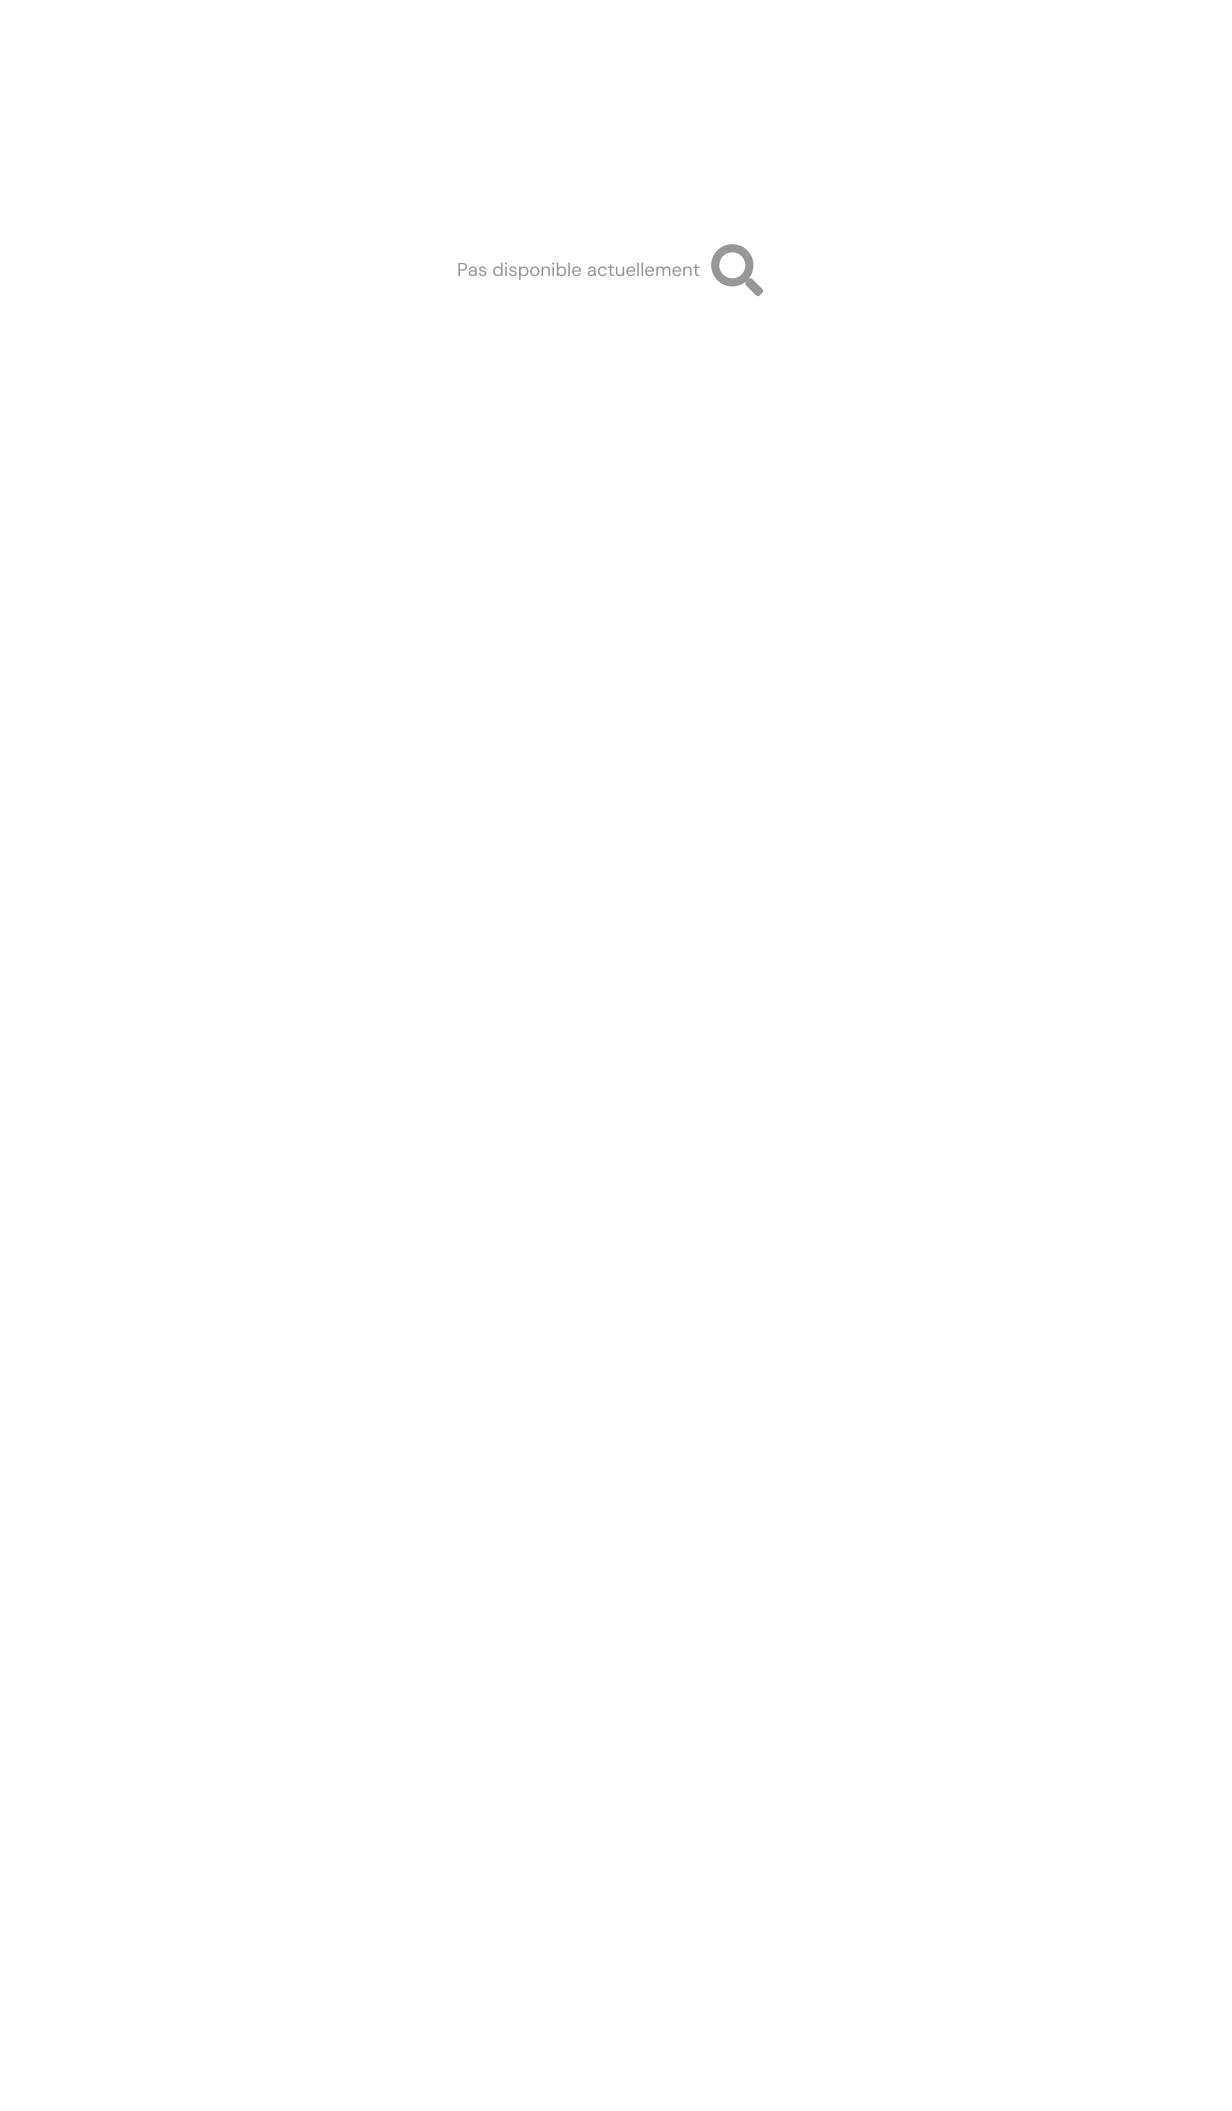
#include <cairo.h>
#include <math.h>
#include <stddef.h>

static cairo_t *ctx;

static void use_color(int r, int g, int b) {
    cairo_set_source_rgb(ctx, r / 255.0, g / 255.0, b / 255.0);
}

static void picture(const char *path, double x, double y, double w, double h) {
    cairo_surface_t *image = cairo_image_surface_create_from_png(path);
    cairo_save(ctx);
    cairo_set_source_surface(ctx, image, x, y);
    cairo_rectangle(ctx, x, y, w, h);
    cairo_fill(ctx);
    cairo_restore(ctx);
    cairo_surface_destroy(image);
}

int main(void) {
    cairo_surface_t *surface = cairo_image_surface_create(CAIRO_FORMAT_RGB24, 1232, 2111);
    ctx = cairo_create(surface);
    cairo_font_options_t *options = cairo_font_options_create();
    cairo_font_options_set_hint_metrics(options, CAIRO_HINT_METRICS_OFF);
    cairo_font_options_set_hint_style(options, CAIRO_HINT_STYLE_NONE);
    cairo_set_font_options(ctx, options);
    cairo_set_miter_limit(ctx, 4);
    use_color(255, 255, 255);
    cairo_paint(ctx);
    cairo_select_font_face(ctx, "DM Sans", CAIRO_FONT_SLANT_NORMAL, CAIRO_FONT_WEIGHT_NORMAL);
    cairo_set_font_size(ctx, 18.6);
    use_color(151, 151, 151);
    cairo_move_to(ctx, 457, 276);
    cairo_show_text(ctx, "Pas disponible actuellement");
    picture("img1.png", 711, 244, 53, 53);
    cairo_surface_write_to_png(surface, "result.png");
    cairo_font_options_destroy(options);
    cairo_destroy(ctx);
    cairo_surface_destroy(surface);
    return 0;
}
